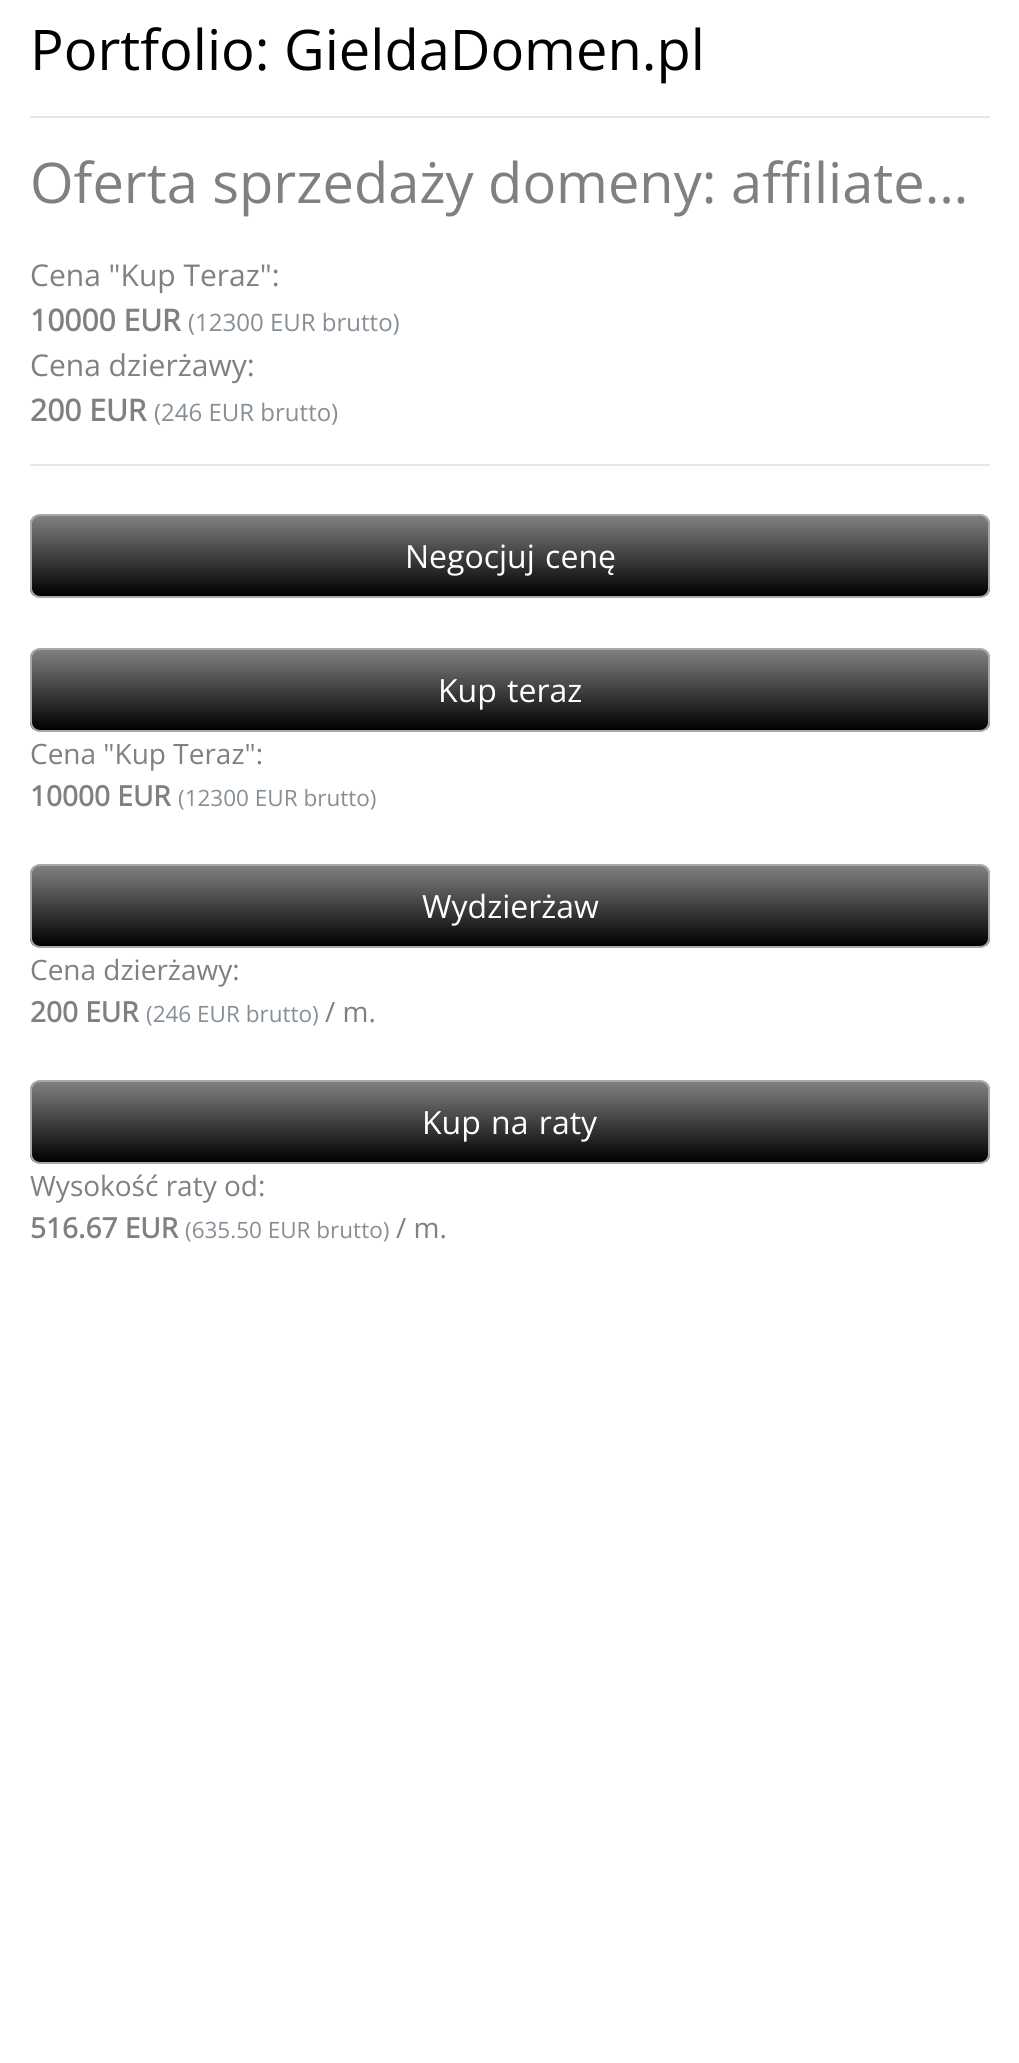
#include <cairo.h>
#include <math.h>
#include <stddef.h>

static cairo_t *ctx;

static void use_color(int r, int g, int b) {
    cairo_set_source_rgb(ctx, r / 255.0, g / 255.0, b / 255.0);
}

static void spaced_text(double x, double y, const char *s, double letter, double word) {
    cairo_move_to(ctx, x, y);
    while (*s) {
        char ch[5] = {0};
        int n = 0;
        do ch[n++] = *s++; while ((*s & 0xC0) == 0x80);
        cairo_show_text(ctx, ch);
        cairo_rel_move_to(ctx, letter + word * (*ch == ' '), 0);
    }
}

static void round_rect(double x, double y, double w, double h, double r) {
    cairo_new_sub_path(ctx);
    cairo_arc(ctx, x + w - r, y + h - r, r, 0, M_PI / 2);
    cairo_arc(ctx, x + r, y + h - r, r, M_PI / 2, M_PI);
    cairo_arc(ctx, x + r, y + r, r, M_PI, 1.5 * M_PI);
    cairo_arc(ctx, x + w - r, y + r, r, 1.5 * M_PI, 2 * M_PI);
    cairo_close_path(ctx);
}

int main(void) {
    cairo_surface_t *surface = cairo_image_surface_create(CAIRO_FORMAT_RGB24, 1019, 2063);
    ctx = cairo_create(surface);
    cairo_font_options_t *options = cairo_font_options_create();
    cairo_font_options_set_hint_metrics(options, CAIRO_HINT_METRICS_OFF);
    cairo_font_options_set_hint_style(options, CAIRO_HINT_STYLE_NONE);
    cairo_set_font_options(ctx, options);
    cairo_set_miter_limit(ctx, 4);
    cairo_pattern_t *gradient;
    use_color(255, 255, 255);
    cairo_paint(ctx);
    cairo_select_font_face(ctx, "Open Sans", CAIRO_FONT_SLANT_NORMAL, CAIRO_FONT_WEIGHT_NORMAL);
    cairo_set_font_size(ctx, 56);
    use_color(0, 0, 0);
    cairo_move_to(ctx, 30, 70);
    cairo_show_text(ctx, "Portfolio: GieldaDomen.pl");
    use_color(230, 230, 230);
    cairo_rectangle(ctx, 30, 116, 960, 2);
    cairo_fill(ctx);
    use_color(128, 128, 128);
    cairo_move_to(ctx, 30, 203);
    cairo_show_text(ctx, "Oferta sprzedaży domeny: affiliate…");
    cairo_set_font_size(ctx, 30);
    cairo_move_to(ctx, 30, 286);
    cairo_show_text(ctx, "Cena \"Kup Teraz\":");
    cairo_select_font_face(ctx, "Open Sans", CAIRO_FONT_SLANT_NORMAL, CAIRO_FONT_WEIGHT_BOLD);
    cairo_move_to(ctx, 30, 331);
    cairo_show_text(ctx, "10000 EUR");
    cairo_select_font_face(ctx, "Open Sans", CAIRO_FONT_SLANT_NORMAL, CAIRO_FONT_WEIGHT_NORMAL);
    cairo_set_font_size(ctx, 24);
    use_color(134, 142, 150);
    cairo_move_to(ctx, 188, 331);
    cairo_show_text(ctx, "(12300 EUR brutto)");
    cairo_set_font_size(ctx, 30);
    use_color(128, 128, 128);
    cairo_move_to(ctx, 30, 376);
    cairo_show_text(ctx, "Cena dzierżawy:");
    cairo_select_font_face(ctx, "Open Sans", CAIRO_FONT_SLANT_NORMAL, CAIRO_FONT_WEIGHT_BOLD);
    cairo_move_to(ctx, 30, 421);
    cairo_show_text(ctx, "200 EUR");
    cairo_select_font_face(ctx, "Open Sans", CAIRO_FONT_SLANT_NORMAL, CAIRO_FONT_WEIGHT_NORMAL);
    cairo_set_font_size(ctx, 24);
    use_color(134, 142, 150);
    cairo_move_to(ctx, 154, 421);
    cairo_show_text(ctx, "(246 EUR brutto)");
    use_color(230, 230, 230);
    cairo_rectangle(ctx, 30, 464, 960, 2);
    cairo_fill(ctx);
    cairo_save(ctx);
    round_rect(30, 514, 960, 84, 10);
    cairo_clip(ctx);
    gradient = cairo_pattern_create_linear(510, 596, 510, 516);
    cairo_pattern_add_color_stop_rgba(gradient, 0, 0, 0, 0, 1);
    cairo_pattern_add_color_stop_rgba(gradient, 1, 0.502, 0.502, 0.502, 1);
    cairo_set_source(ctx, gradient);
    cairo_pattern_destroy(gradient);
    cairo_rectangle(ctx, 30, 516, 960, 80);
    cairo_fill(ctx);
    cairo_restore(ctx);
    round_rect(31, 515, 958, 82, 9);
    use_color(169, 169, 169);
    cairo_stroke(ctx);
    cairo_set_font_size(ctx, 32);
    use_color(255, 255, 255);
    spaced_text(405, 568, "Negocjuj cenę", 0, 2);
    cairo_save(ctx);
    round_rect(30, 648, 960, 84, 10);
    cairo_clip(ctx);
    gradient = cairo_pattern_create_linear(510, 730, 510, 650);
    cairo_pattern_add_color_stop_rgba(gradient, 0, 0, 0, 0, 1);
    cairo_pattern_add_color_stop_rgba(gradient, 1, 0.502, 0.502, 0.502, 1);
    cairo_set_source(ctx, gradient);
    cairo_pattern_destroy(gradient);
    cairo_rectangle(ctx, 30, 650, 960, 80);
    cairo_fill(ctx);
    cairo_restore(ctx);
    round_rect(31, 649, 958, 82, 9);
    use_color(169, 169, 169);
    cairo_stroke(ctx);
    use_color(255, 255, 255);
    spaced_text(438, 702, "Kup teraz", 0, 2);
    cairo_set_font_size(ctx, 28);
    use_color(128, 128, 128);
    cairo_move_to(ctx, 30, 764);
    cairo_show_text(ctx, "Cena \"Kup Teraz\":");
    cairo_select_font_face(ctx, "Open Sans", CAIRO_FONT_SLANT_NORMAL, CAIRO_FONT_WEIGHT_BOLD);
    cairo_move_to(ctx, 30, 806);
    cairo_show_text(ctx, "10000 EUR");
    cairo_select_font_face(ctx, "Open Sans", CAIRO_FONT_SLANT_NORMAL, CAIRO_FONT_WEIGHT_NORMAL);
    cairo_set_font_size(ctx, 22.5);
    use_color(134, 142, 150);
    cairo_move_to(ctx, 178, 806);
    cairo_show_text(ctx, "(12300 EUR brutto)");
    cairo_save(ctx);
    round_rect(30, 864, 960, 84, 10);
    cairo_clip(ctx);
    gradient = cairo_pattern_create_linear(510, 946, 510, 866);
    cairo_pattern_add_color_stop_rgba(gradient, 0, 0, 0, 0, 1);
    cairo_pattern_add_color_stop_rgba(gradient, 1, 0.502, 0.502, 0.502, 1);
    cairo_set_source(ctx, gradient);
    cairo_pattern_destroy(gradient);
    cairo_rectangle(ctx, 30, 866, 960, 80);
    cairo_fill(ctx);
    cairo_restore(ctx);
    round_rect(31, 865, 958, 82, 9);
    use_color(169, 169, 169);
    cairo_stroke(ctx);
    cairo_set_font_size(ctx, 32);
    use_color(255, 255, 255);
    cairo_move_to(ctx, 422, 918);
    cairo_show_text(ctx, "Wydzierżaw");
    cairo_set_font_size(ctx, 28);
    use_color(128, 128, 128);
    cairo_move_to(ctx, 30, 980);
    cairo_show_text(ctx, "Cena dzierżawy:");
    cairo_select_font_face(ctx, "Open Sans", CAIRO_FONT_SLANT_NORMAL, CAIRO_FONT_WEIGHT_BOLD);
    cairo_move_to(ctx, 30, 1022);
    cairo_show_text(ctx, "200 EUR");
    cairo_select_font_face(ctx, "Open Sans", CAIRO_FONT_SLANT_NORMAL, CAIRO_FONT_WEIGHT_NORMAL);
    cairo_set_font_size(ctx, 22.5);
    use_color(134, 142, 150);
    cairo_move_to(ctx, 146, 1022);
    cairo_show_text(ctx, "(246 EUR brutto)");
    cairo_set_font_size(ctx, 28);
    use_color(128, 128, 128);
    cairo_move_to(ctx, 325, 1022);
    cairo_show_text(ctx, "/ m.");
    cairo_save(ctx);
    round_rect(30, 1080, 960, 84, 10);
    cairo_clip(ctx);
    gradient = cairo_pattern_create_linear(510, 1162, 510, 1082);
    cairo_pattern_add_color_stop_rgba(gradient, 0, 0, 0, 0, 1);
    cairo_pattern_add_color_stop_rgba(gradient, 1, 0.502, 0.502, 0.502, 1);
    cairo_set_source(ctx, gradient);
    cairo_pattern_destroy(gradient);
    cairo_rectangle(ctx, 30, 1082, 960, 80);
    cairo_fill(ctx);
    cairo_restore(ctx);
    round_rect(31, 1081, 958, 82, 9);
    use_color(169, 169, 169);
    cairo_stroke(ctx);
    cairo_set_font_size(ctx, 32);
    use_color(255, 255, 255);
    spaced_text(422, 1134, "Kup na raty", 0, 2);
    cairo_set_font_size(ctx, 28);
    use_color(128, 128, 128);
    cairo_move_to(ctx, 30, 1196);
    cairo_show_text(ctx, "Wysokość raty od:");
    cairo_select_font_face(ctx, "Open Sans", CAIRO_FONT_SLANT_NORMAL, CAIRO_FONT_WEIGHT_BOLD);
    cairo_move_to(ctx, 30, 1238);
    cairo_show_text(ctx, "516.67 EUR");
    cairo_select_font_face(ctx, "Open Sans", CAIRO_FONT_SLANT_NORMAL, CAIRO_FONT_WEIGHT_NORMAL);
    cairo_set_font_size(ctx, 22.5);
    use_color(134, 142, 150);
    cairo_move_to(ctx, 185, 1238);
    cairo_show_text(ctx, "(635.50 EUR brutto)");
    cairo_set_font_size(ctx, 28);
    use_color(128, 128, 128);
    cairo_move_to(ctx, 396, 1238);
    cairo_show_text(ctx, "/ m.");
    cairo_surface_write_to_png(surface, "result.png");
    cairo_font_options_destroy(options);
    cairo_destroy(ctx);
    cairo_surface_destroy(surface);
    return 0;
}
